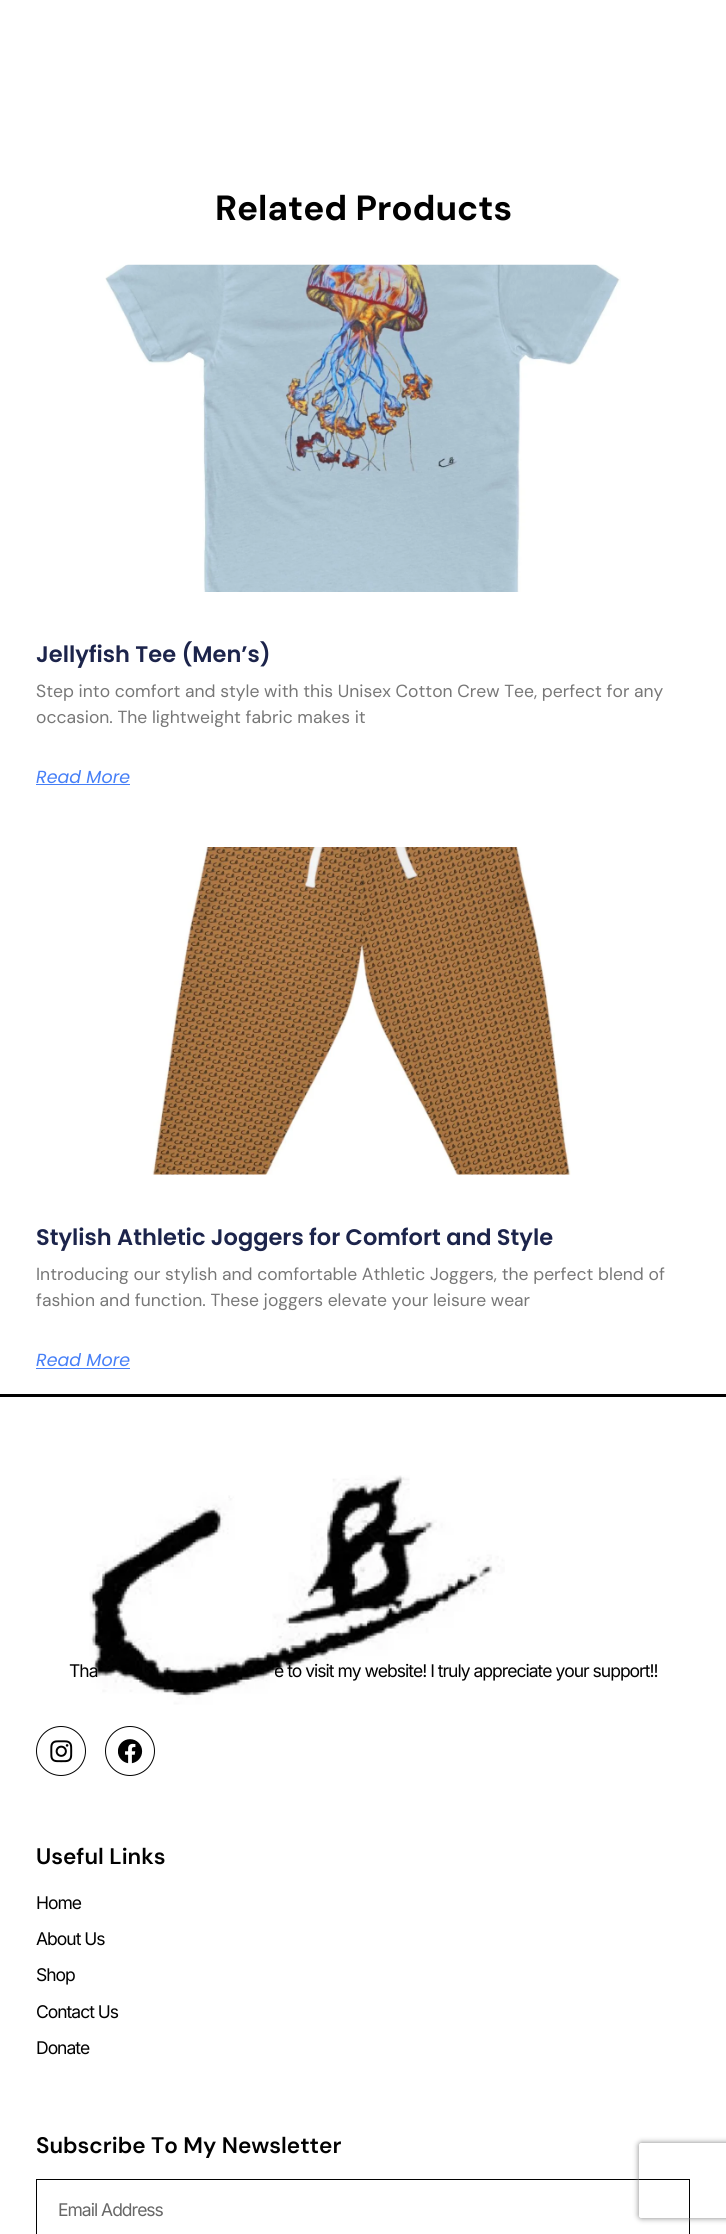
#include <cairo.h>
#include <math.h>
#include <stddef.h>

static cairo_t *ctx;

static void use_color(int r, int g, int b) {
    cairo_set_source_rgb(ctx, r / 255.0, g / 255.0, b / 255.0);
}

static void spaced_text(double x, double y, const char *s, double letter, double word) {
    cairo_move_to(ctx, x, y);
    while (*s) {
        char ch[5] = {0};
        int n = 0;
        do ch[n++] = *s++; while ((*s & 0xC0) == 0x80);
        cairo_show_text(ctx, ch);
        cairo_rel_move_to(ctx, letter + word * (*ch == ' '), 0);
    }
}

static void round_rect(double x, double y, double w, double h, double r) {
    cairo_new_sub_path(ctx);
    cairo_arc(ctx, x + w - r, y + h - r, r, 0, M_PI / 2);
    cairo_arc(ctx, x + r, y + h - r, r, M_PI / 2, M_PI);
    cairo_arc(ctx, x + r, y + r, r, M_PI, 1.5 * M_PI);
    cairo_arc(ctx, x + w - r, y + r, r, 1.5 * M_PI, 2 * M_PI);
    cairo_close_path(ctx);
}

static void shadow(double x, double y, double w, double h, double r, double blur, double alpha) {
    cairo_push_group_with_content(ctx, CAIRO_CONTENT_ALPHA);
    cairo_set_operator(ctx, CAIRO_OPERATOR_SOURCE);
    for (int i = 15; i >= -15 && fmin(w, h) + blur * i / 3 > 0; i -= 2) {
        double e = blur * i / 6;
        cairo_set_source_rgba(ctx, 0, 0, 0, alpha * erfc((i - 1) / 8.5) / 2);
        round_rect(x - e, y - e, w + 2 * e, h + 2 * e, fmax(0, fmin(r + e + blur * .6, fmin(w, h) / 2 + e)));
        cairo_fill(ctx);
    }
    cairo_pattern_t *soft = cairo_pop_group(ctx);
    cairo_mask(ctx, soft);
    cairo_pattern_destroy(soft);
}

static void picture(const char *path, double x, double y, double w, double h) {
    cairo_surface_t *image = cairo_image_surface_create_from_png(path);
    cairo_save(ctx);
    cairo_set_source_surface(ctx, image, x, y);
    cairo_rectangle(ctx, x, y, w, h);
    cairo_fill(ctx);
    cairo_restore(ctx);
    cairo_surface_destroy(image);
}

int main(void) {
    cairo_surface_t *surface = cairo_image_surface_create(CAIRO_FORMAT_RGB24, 726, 2234);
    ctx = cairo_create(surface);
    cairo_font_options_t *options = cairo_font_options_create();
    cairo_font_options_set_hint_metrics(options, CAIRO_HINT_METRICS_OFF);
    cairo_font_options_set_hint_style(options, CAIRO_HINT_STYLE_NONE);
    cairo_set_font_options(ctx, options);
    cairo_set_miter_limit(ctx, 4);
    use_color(255, 255, 255);
    cairo_paint(ctx);
    cairo_select_font_face(ctx, "DM Sans", CAIRO_FONT_SLANT_NORMAL, CAIRO_FONT_WEIGHT_BOLD);
    cairo_set_font_size(ctx, 35);
    use_color(1, 1, 1);
    cairo_move_to(ctx, 215, 220);
    cairo_show_text(ctx, "Related Products");
    picture("img1.png", 105, 264, 516, 328);
    cairo_select_font_face(ctx, "Poppins SemiBold", CAIRO_FONT_SLANT_NORMAL, CAIRO_FONT_WEIGHT_NORMAL);
    cairo_set_font_size(ctx, 22.5);
    use_color(28, 36, 75);
    cairo_move_to(ctx, 36, 662);
    cairo_show_text(ctx, "Jellyfish Tee (Men’s)");
    cairo_select_font_face(ctx, "DM Sans", CAIRO_FONT_SLANT_NORMAL, CAIRO_FONT_WEIGHT_NORMAL);
    cairo_set_font_size(ctx, 17.5);
    use_color(119, 119, 119);
    cairo_move_to(ctx, 36, 697);
    cairo_show_text(ctx, "Step into comfort and style with this Unisex Cotton Crew Tee, perfect for any");
    cairo_move_to(ctx, 36, 723);
    cairo_show_text(ctx, "occasion. The lightweight fabric makes it");
    cairo_select_font_face(ctx, "Poppins", CAIRO_FONT_SLANT_ITALIC, CAIRO_FONT_WEIGHT_NORMAL);
    use_color(70, 127, 247);
    cairo_move_to(ctx, 36, 783);
    cairo_show_text(ctx, "Read More");
    cairo_rectangle(ctx, 36, 784, 94, 1);
    cairo_fill(ctx);
    picture("img2.png", 152, 847, 419, 328);
    cairo_select_font_face(ctx, "Poppins SemiBold", CAIRO_FONT_SLANT_NORMAL, CAIRO_FONT_WEIGHT_NORMAL);
    cairo_set_font_size(ctx, 22.5);
    use_color(28, 36, 75);
    cairo_move_to(ctx, 36, 1245);
    cairo_show_text(ctx, "Stylish Athletic Joggers for Comfort and Style");
    cairo_select_font_face(ctx, "DM Sans", CAIRO_FONT_SLANT_NORMAL, CAIRO_FONT_WEIGHT_NORMAL);
    cairo_set_font_size(ctx, 17.5);
    use_color(119, 119, 119);
    cairo_move_to(ctx, 36, 1280);
    cairo_show_text(ctx, "Introducing our stylish and comfortable Athletic Joggers, the perfect blend of");
    cairo_move_to(ctx, 36, 1306);
    cairo_show_text(ctx, "fashion and function. These joggers elevate your leisure wear");
    cairo_select_font_face(ctx, "Poppins", CAIRO_FONT_SLANT_ITALIC, CAIRO_FONT_WEIGHT_NORMAL);
    use_color(70, 127, 247);
    cairo_move_to(ctx, 36, 1366);
    cairo_show_text(ctx, "Read More");
    cairo_rectangle(ctx, 36, 1368, 94, 1);
    cairo_fill(ctx);
    use_color(1, 1, 1);
    cairo_rectangle(ctx, 0, 1394, 726, 3);
    cairo_fill(ctx);
    picture("img3.png", 89, 1475, 416, 230);
    cairo_select_font_face(ctx, "Inter", CAIRO_FONT_SLANT_NORMAL, CAIRO_FONT_WEIGHT_NORMAL);
    spaced_text(69, 1677, "Tha", -1, 0);
    spaced_text(274, 1677, "e to visit my website! I truly appreciate your support!!", -1, 0);
    cairo_new_path(ctx);
    cairo_arc(ctx, 61, 1751, 24.5, 0, 2 * M_PI);
    cairo_set_line_width(ctx, 1);
    cairo_stroke(ctx);
    picture("img4.png", 50, 1740, 23, 23);
    cairo_arc(ctx, 130, 1751, 24.5, 0, 2 * M_PI);
    cairo_stroke(ctx);
    picture("img5.png", 118, 1739, 25, 25);
    cairo_select_font_face(ctx, "DM Sans SemiBold", CAIRO_FONT_SLANT_NORMAL, CAIRO_FONT_WEIGHT_NORMAL);
    cairo_set_font_size(ctx, 22.5);
    cairo_move_to(ctx, 36, 1864);
    cairo_show_text(ctx, "Useful Links");
    cairo_select_font_face(ctx, "Inter", CAIRO_FONT_SLANT_NORMAL, CAIRO_FONT_WEIGHT_NORMAL);
    cairo_set_font_size(ctx, 17.5);
    spaced_text(36, 1909, "Home", -1, 0);
    spaced_text(36, 1945, "About Us", -1, 0);
    spaced_text(36, 1981, "Shop", -1, 0);
    spaced_text(36, 2018, "Contact Us", -1, 0);
    spaced_text(36, 2054, "Donate", -1, 0);
    cairo_select_font_face(ctx, "DM Sans SemiBold", CAIRO_FONT_SLANT_NORMAL, CAIRO_FONT_WEIGHT_NORMAL);
    cairo_set_font_size(ctx, 22.5);
    cairo_move_to(ctx, 36, 2153);
    cairo_show_text(ctx, "Subscribe To My Newsletter");
    cairo_rectangle(ctx, 36.5, 2179.5, 653, 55);
    cairo_stroke(ctx);
    cairo_select_font_face(ctx, "Inter", CAIRO_FONT_SLANT_NORMAL, CAIRO_FONT_WEIGHT_NORMAL);
    cairo_set_font_size(ctx, 17.5);
    use_color(103, 103, 103);
    spaced_text(58, 2216, "Email Address", -1, 0);
    cairo_save(ctx);
    cairo_set_fill_rule(ctx, CAIRO_FILL_RULE_EVEN_ODD);
    cairo_new_path(ctx);
    cairo_move_to(ctx, 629, 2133);
    cairo_line_to(ctx, 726, 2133);
    cairo_line_to(ctx, 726, 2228);
    cairo_line_to(ctx, 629, 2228);
    cairo_close_path(ctx);
    cairo_move_to(ctx, 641.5, 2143);
    cairo_line_to(ctx, 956.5, 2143);
    cairo_curve_to(ctx, 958, 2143, 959, 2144, 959, 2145.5);
    cairo_line_to(ctx, 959, 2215.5);
    cairo_curve_to(ctx, 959, 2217, 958, 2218, 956.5, 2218);
    cairo_line_to(ctx, 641.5, 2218);
    cairo_curve_to(ctx, 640, 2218, 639, 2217, 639, 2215.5);
    cairo_line_to(ctx, 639, 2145.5);
    cairo_curve_to(ctx, 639, 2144, 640, 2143, 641.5, 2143);
    cairo_close_path(ctx);
    cairo_clip(ctx);
    use_color(128, 128, 128);
    shadow(639, 2143, 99, 75, 2.5, 3, 1);
    cairo_restore(ctx);
    cairo_surface_write_to_png(surface, "result.png");
    cairo_font_options_destroy(options);
    cairo_destroy(ctx);
    cairo_surface_destroy(surface);
    return 0;
}
